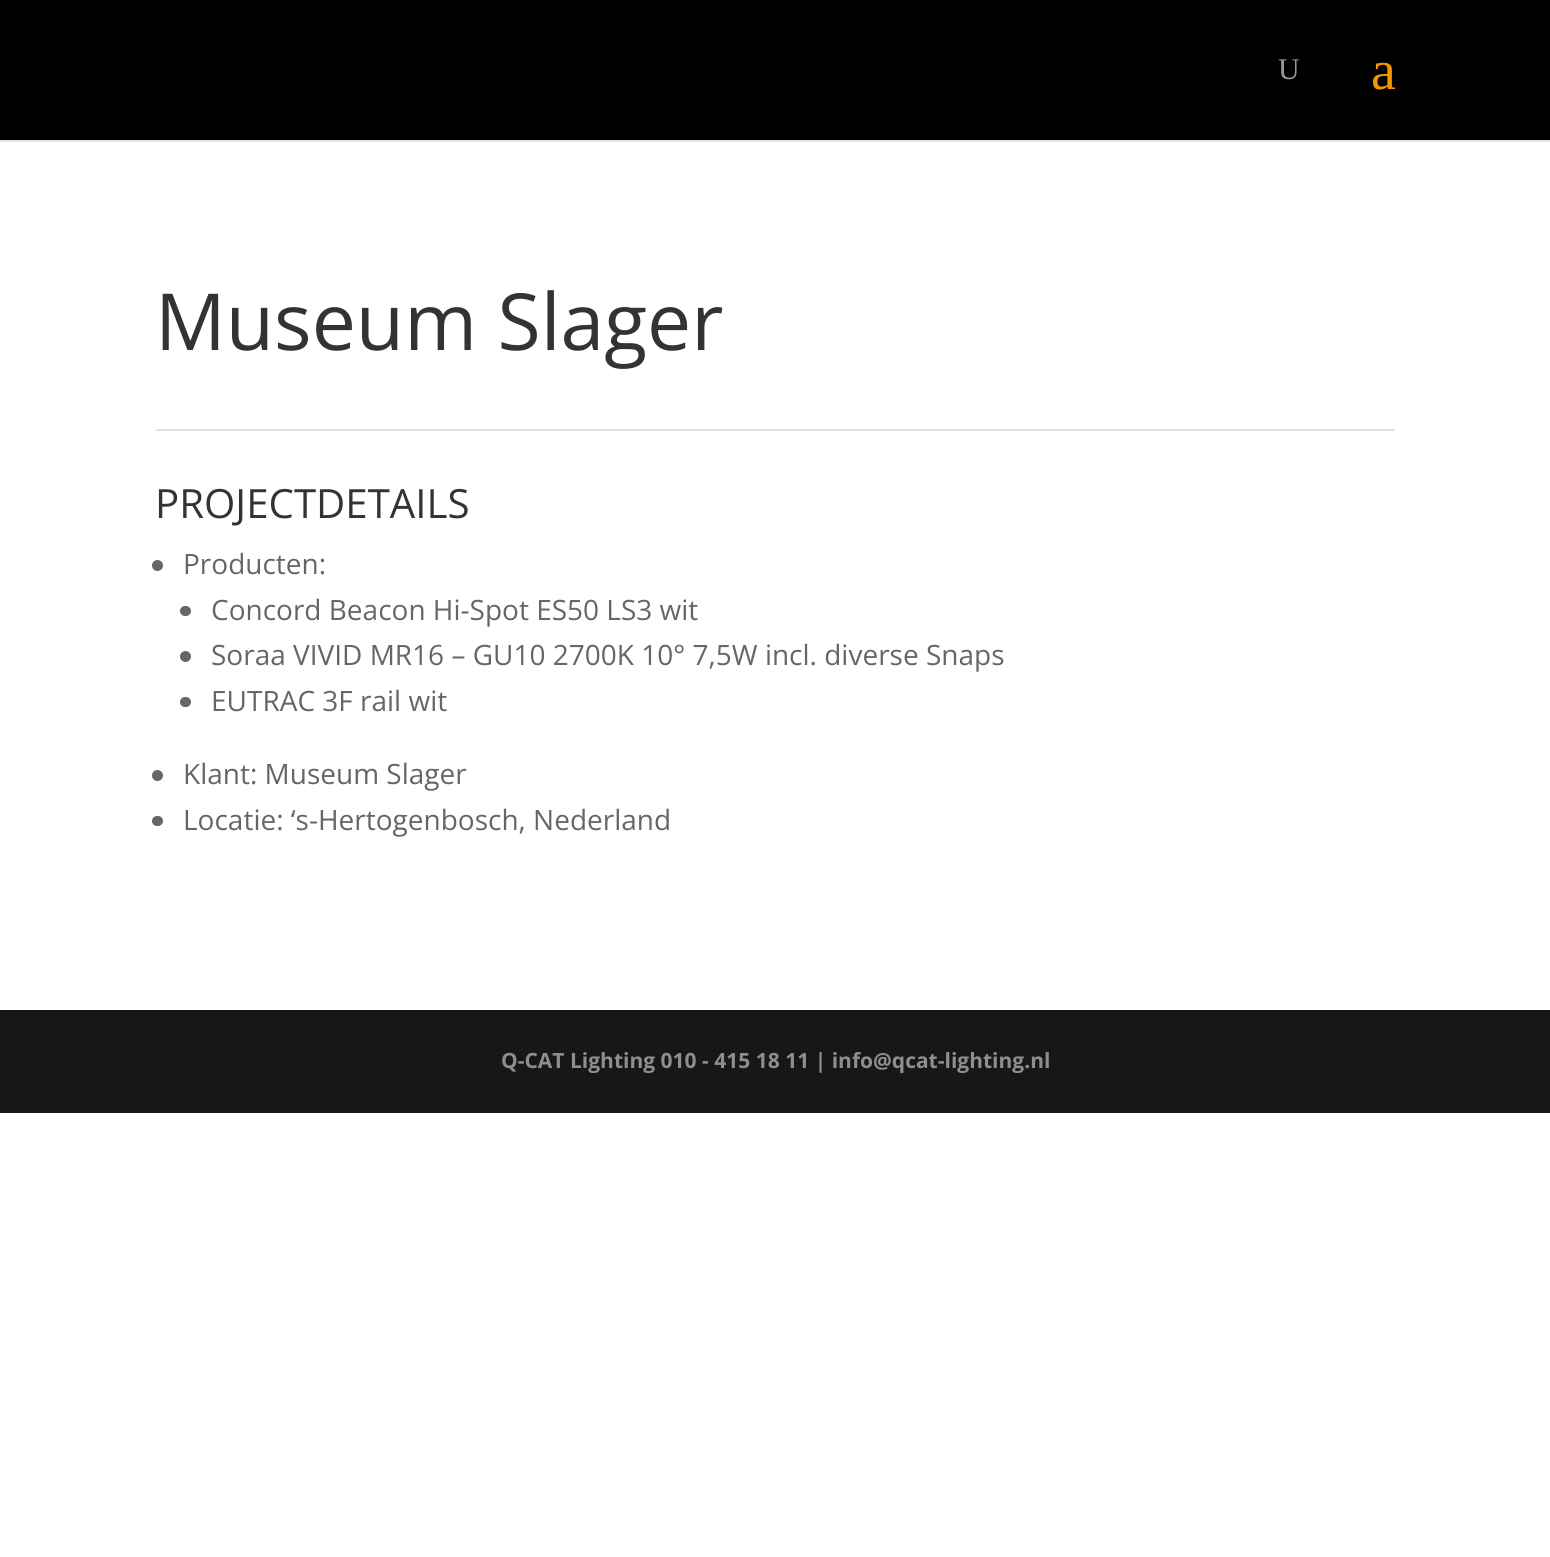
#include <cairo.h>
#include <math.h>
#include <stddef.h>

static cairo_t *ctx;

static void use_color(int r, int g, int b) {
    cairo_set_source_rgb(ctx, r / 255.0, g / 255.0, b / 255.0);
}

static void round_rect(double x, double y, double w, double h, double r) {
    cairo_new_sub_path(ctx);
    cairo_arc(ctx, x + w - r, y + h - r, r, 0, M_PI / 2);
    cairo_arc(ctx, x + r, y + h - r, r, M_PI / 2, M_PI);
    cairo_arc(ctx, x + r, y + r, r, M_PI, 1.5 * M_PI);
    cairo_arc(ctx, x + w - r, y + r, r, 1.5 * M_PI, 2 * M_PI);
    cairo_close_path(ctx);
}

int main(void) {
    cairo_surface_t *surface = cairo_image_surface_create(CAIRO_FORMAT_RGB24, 1550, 1557);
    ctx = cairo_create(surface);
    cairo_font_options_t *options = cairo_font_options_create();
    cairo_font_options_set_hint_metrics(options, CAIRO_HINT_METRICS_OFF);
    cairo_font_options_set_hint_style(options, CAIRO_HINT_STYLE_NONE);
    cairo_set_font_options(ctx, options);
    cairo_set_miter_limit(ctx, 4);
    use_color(255, 255, 255);
    cairo_paint(ctx);
    use_color(230, 230, 230);
    cairo_new_path(ctx);
    cairo_move_to(ctx, 0, 140);
    cairo_line_to(ctx, 0, 142);
    cairo_line_to(ctx, 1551, 142);
    cairo_line_to(ctx, 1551, 2);
    cairo_line_to(ctx, 1550, 2);
    cairo_line_to(ctx, 1550, 140);
    cairo_close_path(ctx);
    cairo_fill(ctx);
    use_color(0, 0, 0);
    cairo_rectangle(ctx, 0, 0, 1550, 140);
    cairo_fill(ctx);
    cairo_select_font_face(ctx, "Liberation Serif", CAIRO_FONT_SLANT_NORMAL, CAIRO_FONT_WEIGHT_NORMAL);
    cairo_set_font_size(ctx, 30);
    use_color(153, 153, 153);
    cairo_move_to(ctx, 1278, 79);
    cairo_show_text(ctx, "U");
    cairo_set_font_size(ctx, 56);
    use_color(244, 150, 0);
    cairo_move_to(ctx, 1371, 89);
    cairo_show_text(ctx, "a");
    cairo_select_font_face(ctx, "Open Sans", CAIRO_FONT_SLANT_NORMAL, CAIRO_FONT_WEIGHT_NORMAL);
    cairo_set_font_size(ctx, 78.75);
    use_color(51, 51, 51);
    cairo_move_to(ctx, 155, 350);
    cairo_show_text(ctx, "Museum Slager");
    use_color(226, 226, 226);
    cairo_rectangle(ctx, 156, 429, 1239, 2);
    cairo_fill(ctx);
    cairo_set_font_size(ctx, 40.25);
    use_color(51, 51, 51);
    cairo_move_to(ctx, 155, 518);
    cairo_show_text(ctx, "PROJECTDETAILS");
    use_color(102, 102, 102);
    cairo_new_path(ctx);
    cairo_arc(ctx, 157.5, 565.5, 5.5, 0, 2 * M_PI);
    cairo_fill(ctx);
    cairo_set_font_size(ctx, 28);
    cairo_move_to(ctx, 183, 574);
    cairo_show_text(ctx, "Producten:");
    round_rect(180, 606, 11, 10, 5);
    cairo_fill(ctx);
    cairo_move_to(ctx, 211, 620);
    cairo_show_text(ctx, "Concord Beacon Hi-Spot ES50 LS3 wit");
    cairo_new_path(ctx);
    cairo_arc(ctx, 185.5, 656.5, 5.5, 0, 2 * M_PI);
    cairo_fill(ctx);
    cairo_move_to(ctx, 211, 665);
    cairo_show_text(ctx, "Soraa VIVID MR16 – GU10 2700K 10° 7,5W incl. diverse Snaps");
    round_rect(180, 697, 11, 10, 5);
    cairo_fill(ctx);
    cairo_move_to(ctx, 211, 711);
    cairo_show_text(ctx, "EUTRAC 3F rail wit");
    cairo_new_path(ctx);
    cairo_arc(ctx, 157.5, 775.5, 5.5, 0, 2 * M_PI);
    cairo_fill(ctx);
    cairo_move_to(ctx, 183, 784);
    cairo_show_text(ctx, "Klant: Museum Slager");
    round_rect(152, 816, 11, 10, 5);
    cairo_fill(ctx);
    cairo_move_to(ctx, 183, 830);
    cairo_show_text(ctx, "Locatie: ‘s-Hertogenbosch, Nederland");
    use_color(23, 23, 23);
    cairo_rectangle(ctx, 0, 1010, 1550, 103);
    cairo_fill(ctx);
    cairo_select_font_face(ctx, "Open Sans", CAIRO_FONT_SLANT_NORMAL, CAIRO_FONT_WEIGHT_BOLD);
    cairo_set_font_size(ctx, 21);
    use_color(142, 142, 142);
    cairo_move_to(ctx, 501, 1068);
    cairo_show_text(ctx, "Q-CAT Lighting 010 - 415 18 11 | info@qcat-lighting.nl");
    cairo_surface_write_to_png(surface, "result.png");
    cairo_font_options_destroy(options);
    cairo_destroy(ctx);
    cairo_surface_destroy(surface);
    return 0;
}
